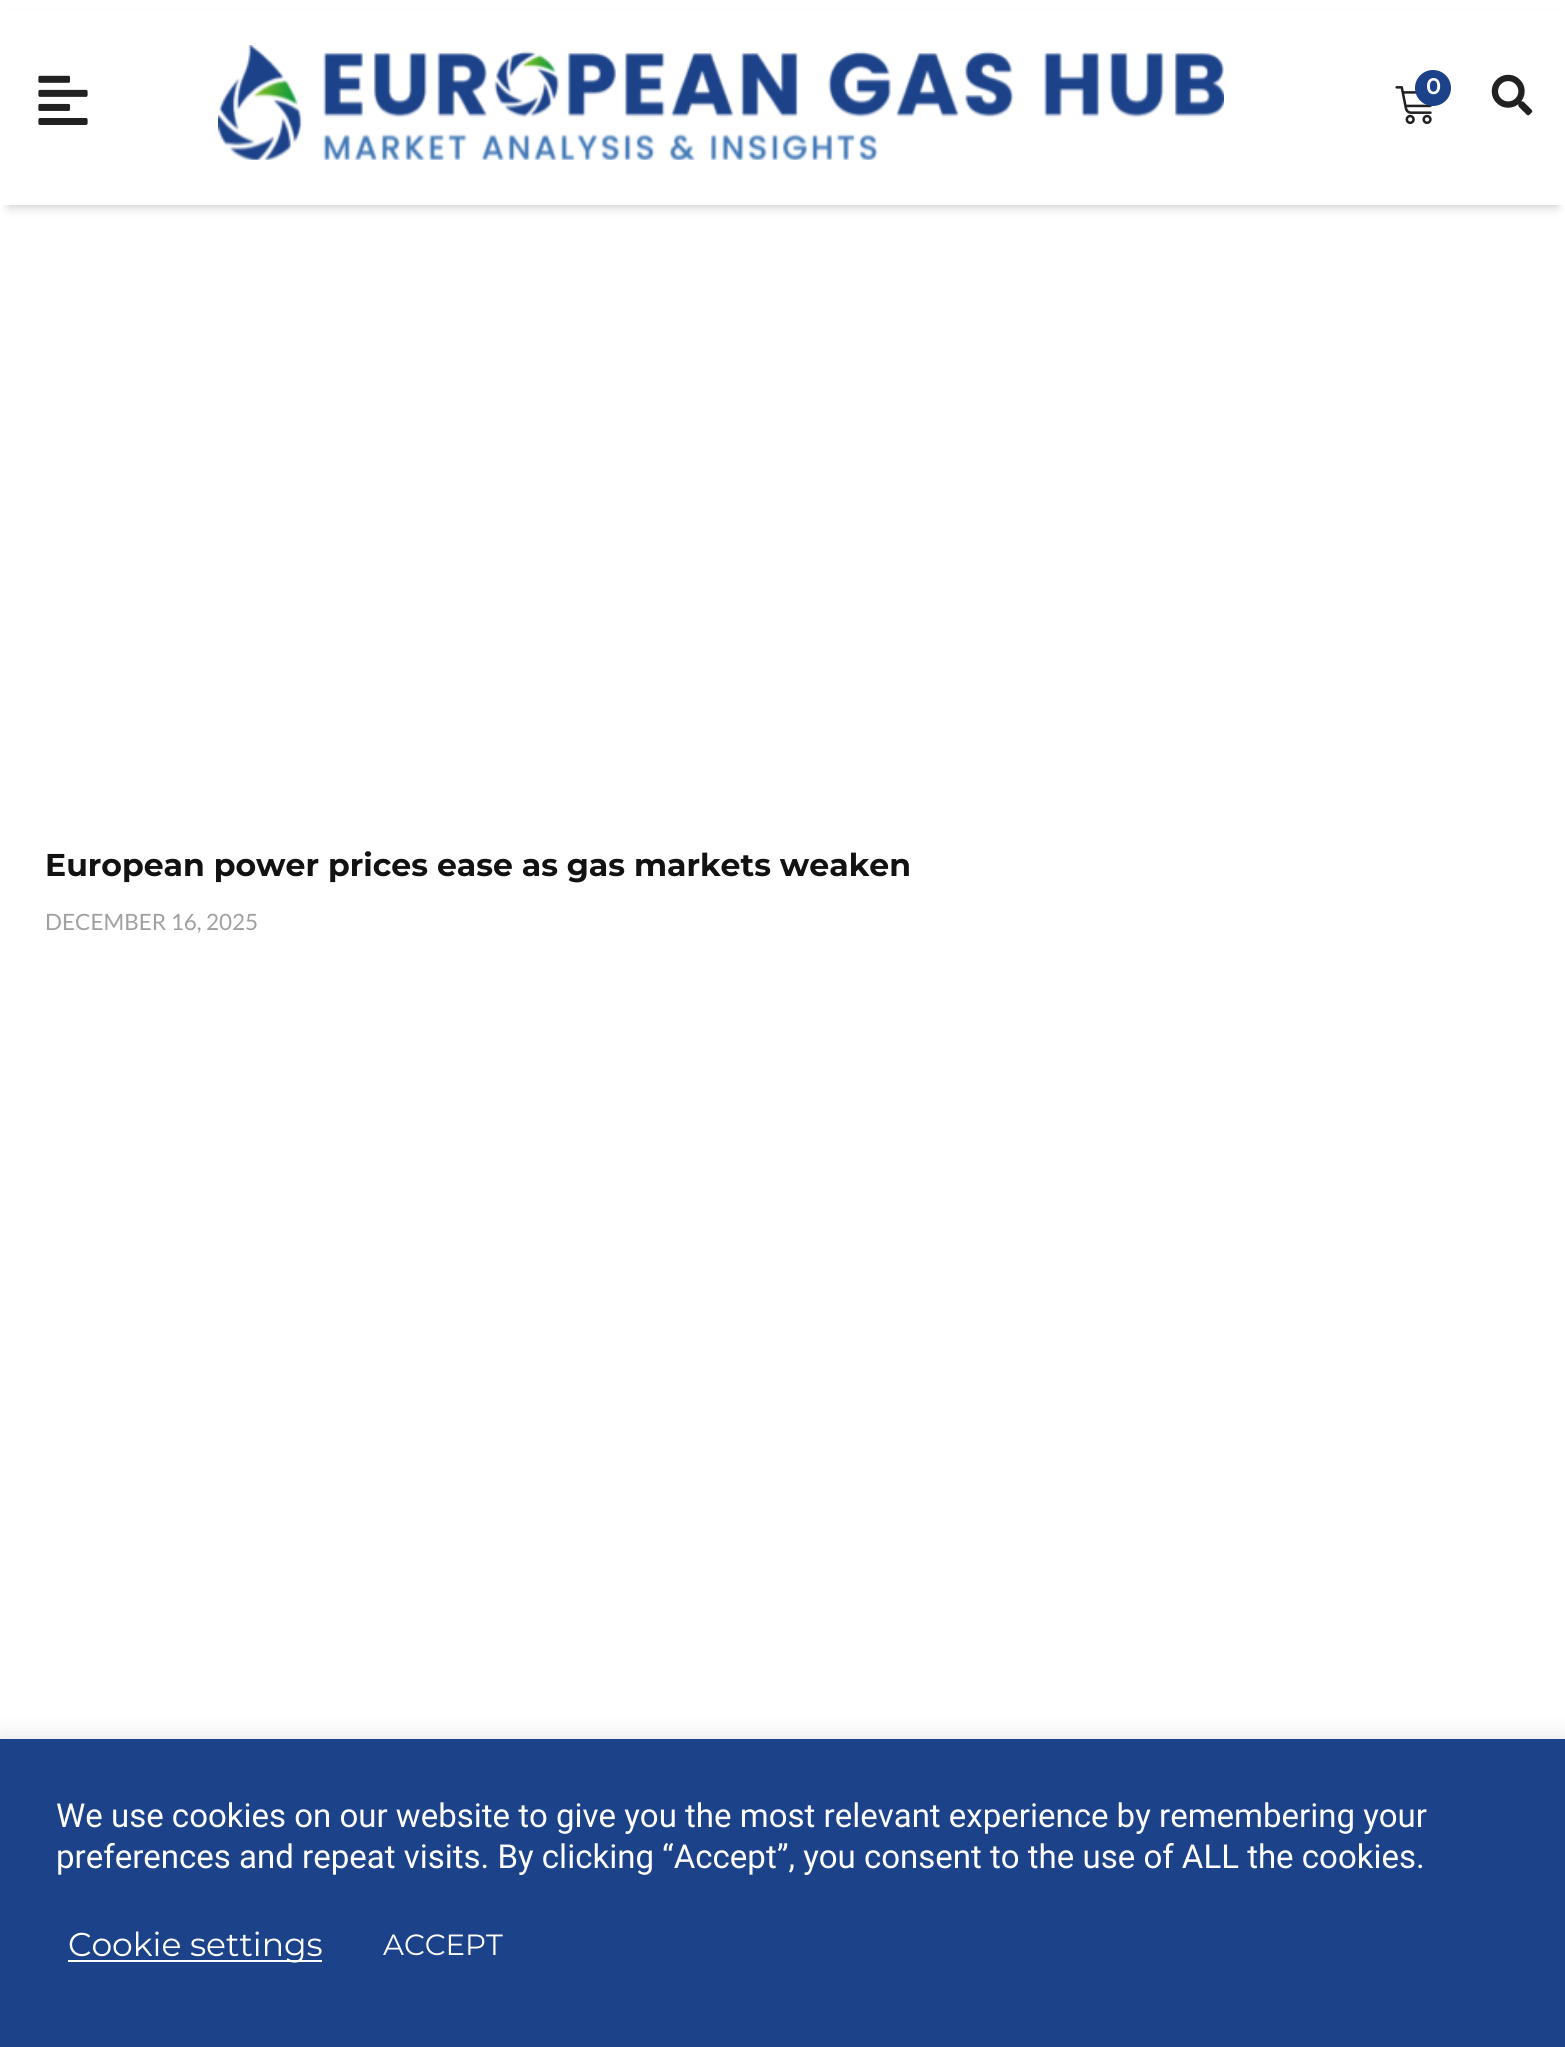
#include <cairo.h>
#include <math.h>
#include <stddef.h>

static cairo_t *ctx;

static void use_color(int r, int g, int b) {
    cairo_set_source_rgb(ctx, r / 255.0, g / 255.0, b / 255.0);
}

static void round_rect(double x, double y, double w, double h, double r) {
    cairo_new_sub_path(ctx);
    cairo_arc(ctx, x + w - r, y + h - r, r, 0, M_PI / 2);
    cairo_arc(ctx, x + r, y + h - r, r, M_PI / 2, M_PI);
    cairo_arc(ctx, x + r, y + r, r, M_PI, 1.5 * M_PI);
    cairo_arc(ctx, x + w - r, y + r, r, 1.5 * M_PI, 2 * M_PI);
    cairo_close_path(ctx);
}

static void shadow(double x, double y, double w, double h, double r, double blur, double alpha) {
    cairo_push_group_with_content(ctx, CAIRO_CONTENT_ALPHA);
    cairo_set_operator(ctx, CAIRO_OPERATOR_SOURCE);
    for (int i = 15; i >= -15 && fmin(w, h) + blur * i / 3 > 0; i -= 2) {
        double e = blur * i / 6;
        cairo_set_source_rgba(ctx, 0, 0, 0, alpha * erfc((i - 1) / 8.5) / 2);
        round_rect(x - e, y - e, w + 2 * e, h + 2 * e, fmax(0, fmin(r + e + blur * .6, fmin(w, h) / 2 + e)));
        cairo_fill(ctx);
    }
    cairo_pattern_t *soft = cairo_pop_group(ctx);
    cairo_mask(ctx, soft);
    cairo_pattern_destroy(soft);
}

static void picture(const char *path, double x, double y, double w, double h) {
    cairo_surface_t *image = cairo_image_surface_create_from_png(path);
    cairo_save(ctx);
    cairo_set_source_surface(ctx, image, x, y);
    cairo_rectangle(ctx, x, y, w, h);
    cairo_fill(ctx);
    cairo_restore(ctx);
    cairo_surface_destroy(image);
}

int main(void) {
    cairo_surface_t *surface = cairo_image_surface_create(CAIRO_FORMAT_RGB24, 1565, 2047);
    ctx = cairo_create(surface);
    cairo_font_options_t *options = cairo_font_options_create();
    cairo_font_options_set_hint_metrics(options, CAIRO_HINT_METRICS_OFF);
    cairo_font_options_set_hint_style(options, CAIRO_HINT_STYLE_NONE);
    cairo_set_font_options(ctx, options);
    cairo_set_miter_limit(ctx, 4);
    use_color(255, 255, 255);
    cairo_paint(ctx);
    use_color(0, 0, 0);
    shadow(9, 20, 1548, 187, 0, 5.5, 0.2);
    use_color(255, 255, 255);
    cairo_rectangle(ctx, 0, 11, 1565, 194);
    cairo_fill(ctx);
    picture("img1.png", 38, 75, 50, 50);
    picture("img2.png", 218, 45, 1006, 115);
    picture("img3.png", 1395, 86, 38, 39);
    use_color(28, 66, 137);
    cairo_arc(ctx, 1433, 88, 18, 0, 2 * M_PI);
    cairo_fill(ctx);
    cairo_select_font_face(ctx, "Montserrat SemiBold", CAIRO_FONT_SLANT_NORMAL, CAIRO_FONT_WEIGHT_NORMAL);
    cairo_set_font_size(ctx, 22.5);
    use_color(255, 255, 255);
    cairo_move_to(ctx, 1426, 94);
    cairo_show_text(ctx, "0");
    picture("img4.png", 1491, 74, 42, 42);
    cairo_select_font_face(ctx, "Montserrat", CAIRO_FONT_SLANT_NORMAL, CAIRO_FONT_WEIGHT_BOLD);
    cairo_set_font_size(ctx, 31.5);
    use_color(18, 18, 18);
    cairo_move_to(ctx, 45, 876);
    cairo_show_text(ctx, "European power prices ease as gas markets weaken");
    cairo_select_font_face(ctx, "Lato", CAIRO_FONT_SLANT_NORMAL, CAIRO_FONT_WEIGHT_NORMAL);
    cairo_set_font_size(ctx, 22.5);
    use_color(160, 160, 160);
    cairo_move_to(ctx, 45, 930);
    cairo_show_text(ctx, "DECEMBER 16, 2025");
    use_color(172, 171, 171);
    shadow(0, 1737, 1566, 308, 0, 11, 0.3);
    use_color(28, 66, 137);
    cairo_rectangle(ctx, 0, 1739, 1565, 308);
    cairo_fill(ctx);
    cairo_select_font_face(ctx, "Roboto", CAIRO_FONT_SLANT_NORMAL, CAIRO_FONT_WEIGHT_NORMAL);
    cairo_set_font_size(ctx, 33);
    use_color(255, 255, 255);
    cairo_move_to(ctx, 56, 1827);
    cairo_show_text(ctx, "We use cookies on our website to give you the most relevant experience by remembering your");
    cairo_move_to(ctx, 56, 1868);
    cairo_show_text(ctx, "preferences and repeat visits. By clicking “Accept”, you consent to the use of ALL the cookies.");
    cairo_rectangle(ctx, 68, 1960, 254, 2);
    cairo_fill(ctx);
    cairo_select_font_face(ctx, "Montserrat", CAIRO_FONT_SLANT_NORMAL, CAIRO_FONT_WEIGHT_NORMAL);
    cairo_move_to(ctx, 68, 1956);
    cairo_show_text(ctx, "Cookie settings");
    cairo_set_font_size(ctx, 29.25);
    cairo_move_to(ctx, 383, 1955);
    cairo_show_text(ctx, "ACCEPT");
    cairo_surface_write_to_png(surface, "result.png");
    cairo_font_options_destroy(options);
    cairo_destroy(ctx);
    cairo_surface_destroy(surface);
    return 0;
}
